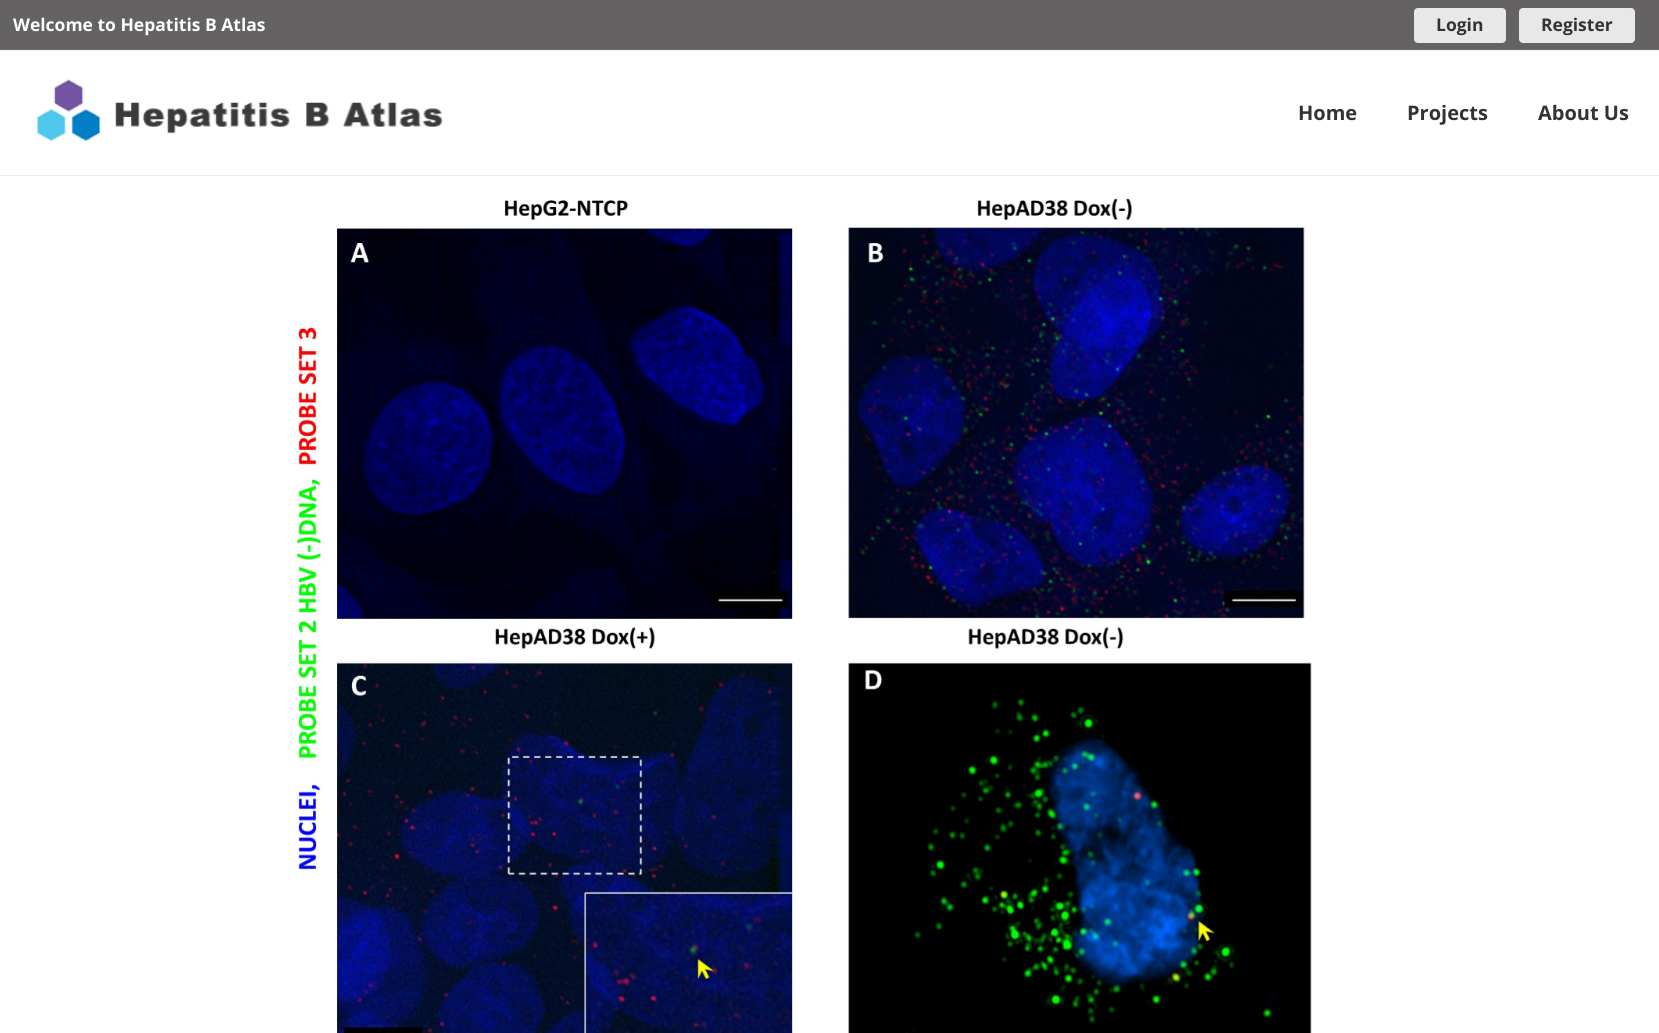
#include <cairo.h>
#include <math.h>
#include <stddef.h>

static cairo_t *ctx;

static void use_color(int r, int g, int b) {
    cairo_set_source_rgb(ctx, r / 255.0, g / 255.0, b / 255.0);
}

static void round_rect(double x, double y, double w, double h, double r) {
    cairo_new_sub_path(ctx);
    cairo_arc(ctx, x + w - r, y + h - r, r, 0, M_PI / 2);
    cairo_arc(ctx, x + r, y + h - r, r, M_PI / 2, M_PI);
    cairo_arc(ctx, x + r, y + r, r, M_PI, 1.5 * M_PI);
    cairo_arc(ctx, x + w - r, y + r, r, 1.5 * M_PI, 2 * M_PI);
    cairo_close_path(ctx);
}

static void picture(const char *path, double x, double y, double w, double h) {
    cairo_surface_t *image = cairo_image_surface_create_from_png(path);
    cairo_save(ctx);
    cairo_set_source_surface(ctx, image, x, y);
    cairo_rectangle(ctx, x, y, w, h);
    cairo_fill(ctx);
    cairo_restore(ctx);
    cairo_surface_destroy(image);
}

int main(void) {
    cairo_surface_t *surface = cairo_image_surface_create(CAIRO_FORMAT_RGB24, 1659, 1033);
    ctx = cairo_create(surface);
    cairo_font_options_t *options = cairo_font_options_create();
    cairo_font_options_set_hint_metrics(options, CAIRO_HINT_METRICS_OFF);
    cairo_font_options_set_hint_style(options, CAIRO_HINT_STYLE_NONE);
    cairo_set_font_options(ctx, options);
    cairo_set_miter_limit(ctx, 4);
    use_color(255, 255, 255);
    cairo_paint(ctx);
    picture("img1.png", 0, 0, 1659, 51);
    cairo_select_font_face(ctx, "Open Sans", CAIRO_FONT_SLANT_NORMAL, CAIRO_FONT_WEIGHT_BOLD);
    cairo_set_font_size(ctx, 17.5);
    use_color(255, 255, 255);
    cairo_move_to(ctx, 13, 31);
    cairo_show_text(ctx, "Welcome to Hepatitis B Atlas");
    use_color(232, 232, 232);
    round_rect(1414, 8, 92, 35, 4);
    cairo_fill(ctx);
    use_color(51, 51, 51);
    cairo_move_to(ctx, 1436, 31);
    cairo_show_text(ctx, "Login");
    use_color(232, 232, 232);
    round_rect(1519, 8, 116, 35, 4);
    cairo_fill(ctx);
    use_color(51, 51, 51);
    cairo_move_to(ctx, 1541, 31);
    cairo_show_text(ctx, "Register");
    use_color(234, 234, 234);
    cairo_rectangle(ctx, 0, 175, 1659, 1);
    cairo_fill(ctx);
    picture("img2.png", 37, 79, 406, 62);
    cairo_set_font_size(ctx, 20);
    use_color(51, 51, 51);
    cairo_move_to(ctx, 1298, 120);
    cairo_show_text(ctx, "Home");
    cairo_move_to(ctx, 1407, 120);
    cairo_show_text(ctx, "Projects");
    cairo_move_to(ctx, 1538, 120);
    cairo_show_text(ctx, "About Us");
    picture("img3.png", 293, 198, 1019, 835);
    cairo_surface_write_to_png(surface, "result.png");
    cairo_font_options_destroy(options);
    cairo_destroy(ctx);
    cairo_surface_destroy(surface);
    return 0;
}
